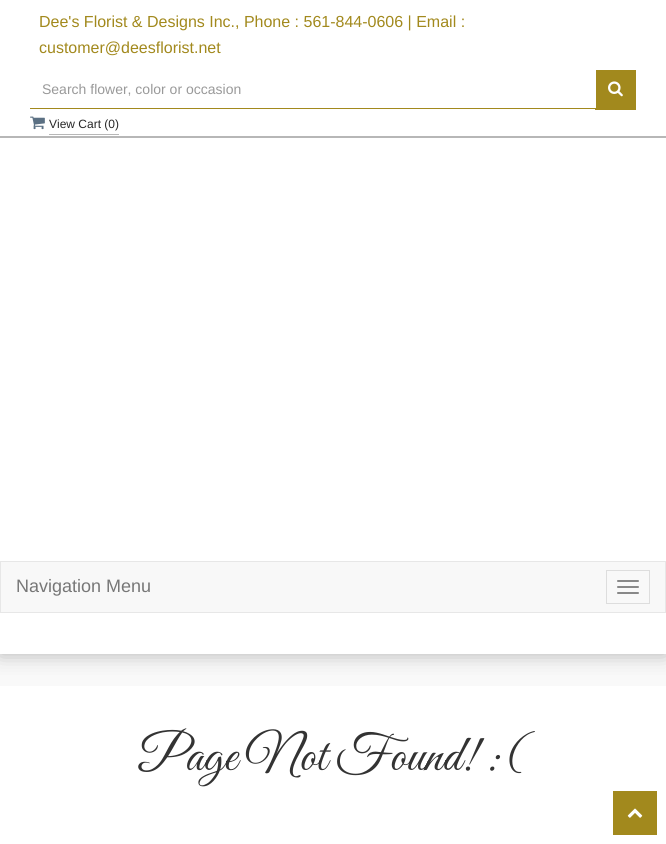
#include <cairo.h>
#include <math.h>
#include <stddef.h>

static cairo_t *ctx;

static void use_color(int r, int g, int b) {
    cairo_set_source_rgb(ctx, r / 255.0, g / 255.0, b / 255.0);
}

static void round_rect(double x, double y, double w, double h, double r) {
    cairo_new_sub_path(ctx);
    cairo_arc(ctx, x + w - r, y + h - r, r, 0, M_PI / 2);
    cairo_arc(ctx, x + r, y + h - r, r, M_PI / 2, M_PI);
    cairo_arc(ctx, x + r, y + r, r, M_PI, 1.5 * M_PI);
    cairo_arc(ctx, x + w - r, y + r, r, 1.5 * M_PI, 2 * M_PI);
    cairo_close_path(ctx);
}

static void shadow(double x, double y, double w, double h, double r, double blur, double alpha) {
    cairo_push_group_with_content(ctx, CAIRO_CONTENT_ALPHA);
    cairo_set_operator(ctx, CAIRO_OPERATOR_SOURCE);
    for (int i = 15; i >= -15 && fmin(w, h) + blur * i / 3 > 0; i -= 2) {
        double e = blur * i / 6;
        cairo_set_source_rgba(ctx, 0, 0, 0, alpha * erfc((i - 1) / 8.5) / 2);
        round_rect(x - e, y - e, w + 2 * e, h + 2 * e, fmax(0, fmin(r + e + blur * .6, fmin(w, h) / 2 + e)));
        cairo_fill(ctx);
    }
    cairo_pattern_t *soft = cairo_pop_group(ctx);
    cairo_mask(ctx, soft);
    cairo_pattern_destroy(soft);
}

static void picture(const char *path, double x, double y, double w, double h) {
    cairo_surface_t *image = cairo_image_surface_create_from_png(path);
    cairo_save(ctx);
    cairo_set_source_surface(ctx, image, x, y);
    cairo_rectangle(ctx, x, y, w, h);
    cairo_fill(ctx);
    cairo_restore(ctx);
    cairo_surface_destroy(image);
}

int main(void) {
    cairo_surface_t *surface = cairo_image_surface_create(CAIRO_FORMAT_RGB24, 666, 844);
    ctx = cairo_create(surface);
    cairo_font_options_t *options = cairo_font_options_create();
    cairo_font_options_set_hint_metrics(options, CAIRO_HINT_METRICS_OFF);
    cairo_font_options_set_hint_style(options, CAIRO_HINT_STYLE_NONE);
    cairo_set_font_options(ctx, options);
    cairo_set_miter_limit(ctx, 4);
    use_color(249, 249, 249);
    cairo_paint(ctx);
    use_color(255, 255, 255);
    cairo_rectangle(ctx, 0, 0, 666, 654);
    cairo_fill(ctx);
    cairo_save(ctx);
    cairo_rectangle(ctx, 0, 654, 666, 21);
    cairo_clip(ctx);
    use_color(177, 177, 177);
    shadow(0, 0, 666, 654, 0, 10, 1);
    cairo_restore(ctx);
    use_color(183, 183, 183);
    cairo_rectangle(ctx, 0, 136, 666, 2);
    cairo_fill(ctx);
    cairo_select_font_face(ctx, "Liberation Sans", CAIRO_FONT_SLANT_NORMAL, CAIRO_FONT_WEIGHT_NORMAL);
    cairo_set_font_size(ctx, 16);
    use_color(162, 137, 29);
    cairo_move_to(ctx, 39, 27);
    cairo_show_text(ctx, "Dee's Florist & Designs Inc., Phone : 561-844-0606 | Email :");
    cairo_move_to(ctx, 39, 53);
    cairo_show_text(ctx, "customer@deesflorist.net");
    cairo_rectangle(ctx, 595, 70, 41, 40);
    cairo_fill(ctx);
    use_color(255, 255, 255);
    cairo_rectangle(ctx, 595, 70, 1, 38);
    cairo_fill(ctx);
    use_color(162, 137, 29);
    cairo_rectangle(ctx, 30, 108, 566, 1);
    cairo_fill(ctx);
    cairo_set_font_size(ctx, 14);
    use_color(153, 153, 153);
    cairo_move_to(ctx, 42, 94);
    cairo_show_text(ctx, "Search flower, color or occasion");
    picture("img1.png", 608, 81, 15, 16);
    picture("img2.png", 30, 116, 15, 14);
    cairo_set_font_size(ctx, 12);
    use_color(39, 39, 39);
    cairo_move_to(ctx, 49, 128);
    cairo_show_text(ctx, "View Cart (0)");
    use_color(183, 183, 183);
    cairo_rectangle(ctx, 49, 134, 70, 1);
    cairo_fill(ctx);
    use_color(248, 248, 248);
    cairo_rectangle(ctx, 0.5, 561.5, 665, 51);
    cairo_fill_preserve(ctx);
    use_color(231, 231, 231);
    cairo_set_line_width(ctx, 1);
    cairo_stroke(ctx);
    cairo_set_font_size(ctx, 18);
    use_color(119, 119, 119);
    cairo_move_to(ctx, 16, 592);
    cairo_show_text(ctx, "Navigation Menu");
    cairo_rectangle(ctx, 606.5, 570.5, 43, 33);
    use_color(221, 221, 221);
    cairo_stroke(ctx);
    use_color(136, 136, 136);
    round_rect(617, 580, 22, 2, 1);
    cairo_fill(ctx);
    round_rect(617, 586, 22, 2, 1);
    cairo_fill(ctx);
    round_rect(617, 592, 22, 2, 1);
    cairo_fill(ctx);
    use_color(255, 255, 255);
    cairo_rectangle(ctx, 0, 686, 666, 158);
    cairo_fill(ctx);
    cairo_select_font_face(ctx, "Great Vibes", CAIRO_FONT_SLANT_NORMAL, CAIRO_FONT_WEIGHT_NORMAL);
    cairo_set_font_size(ctx, 51.25);
    use_color(51, 51, 51);
    cairo_move_to(ctx, 138, 770);
    cairo_show_text(ctx, "Page Not Found! :(");
    use_color(162, 137, 29);
    cairo_rectangle(ctx, 613, 791, 44, 44);
    cairo_fill(ctx);
    picture("img3.png", 627, 808, 16, 10);
    cairo_surface_write_to_png(surface, "result.png");
    cairo_font_options_destroy(options);
    cairo_destroy(ctx);
    cairo_surface_destroy(surface);
    return 0;
}
